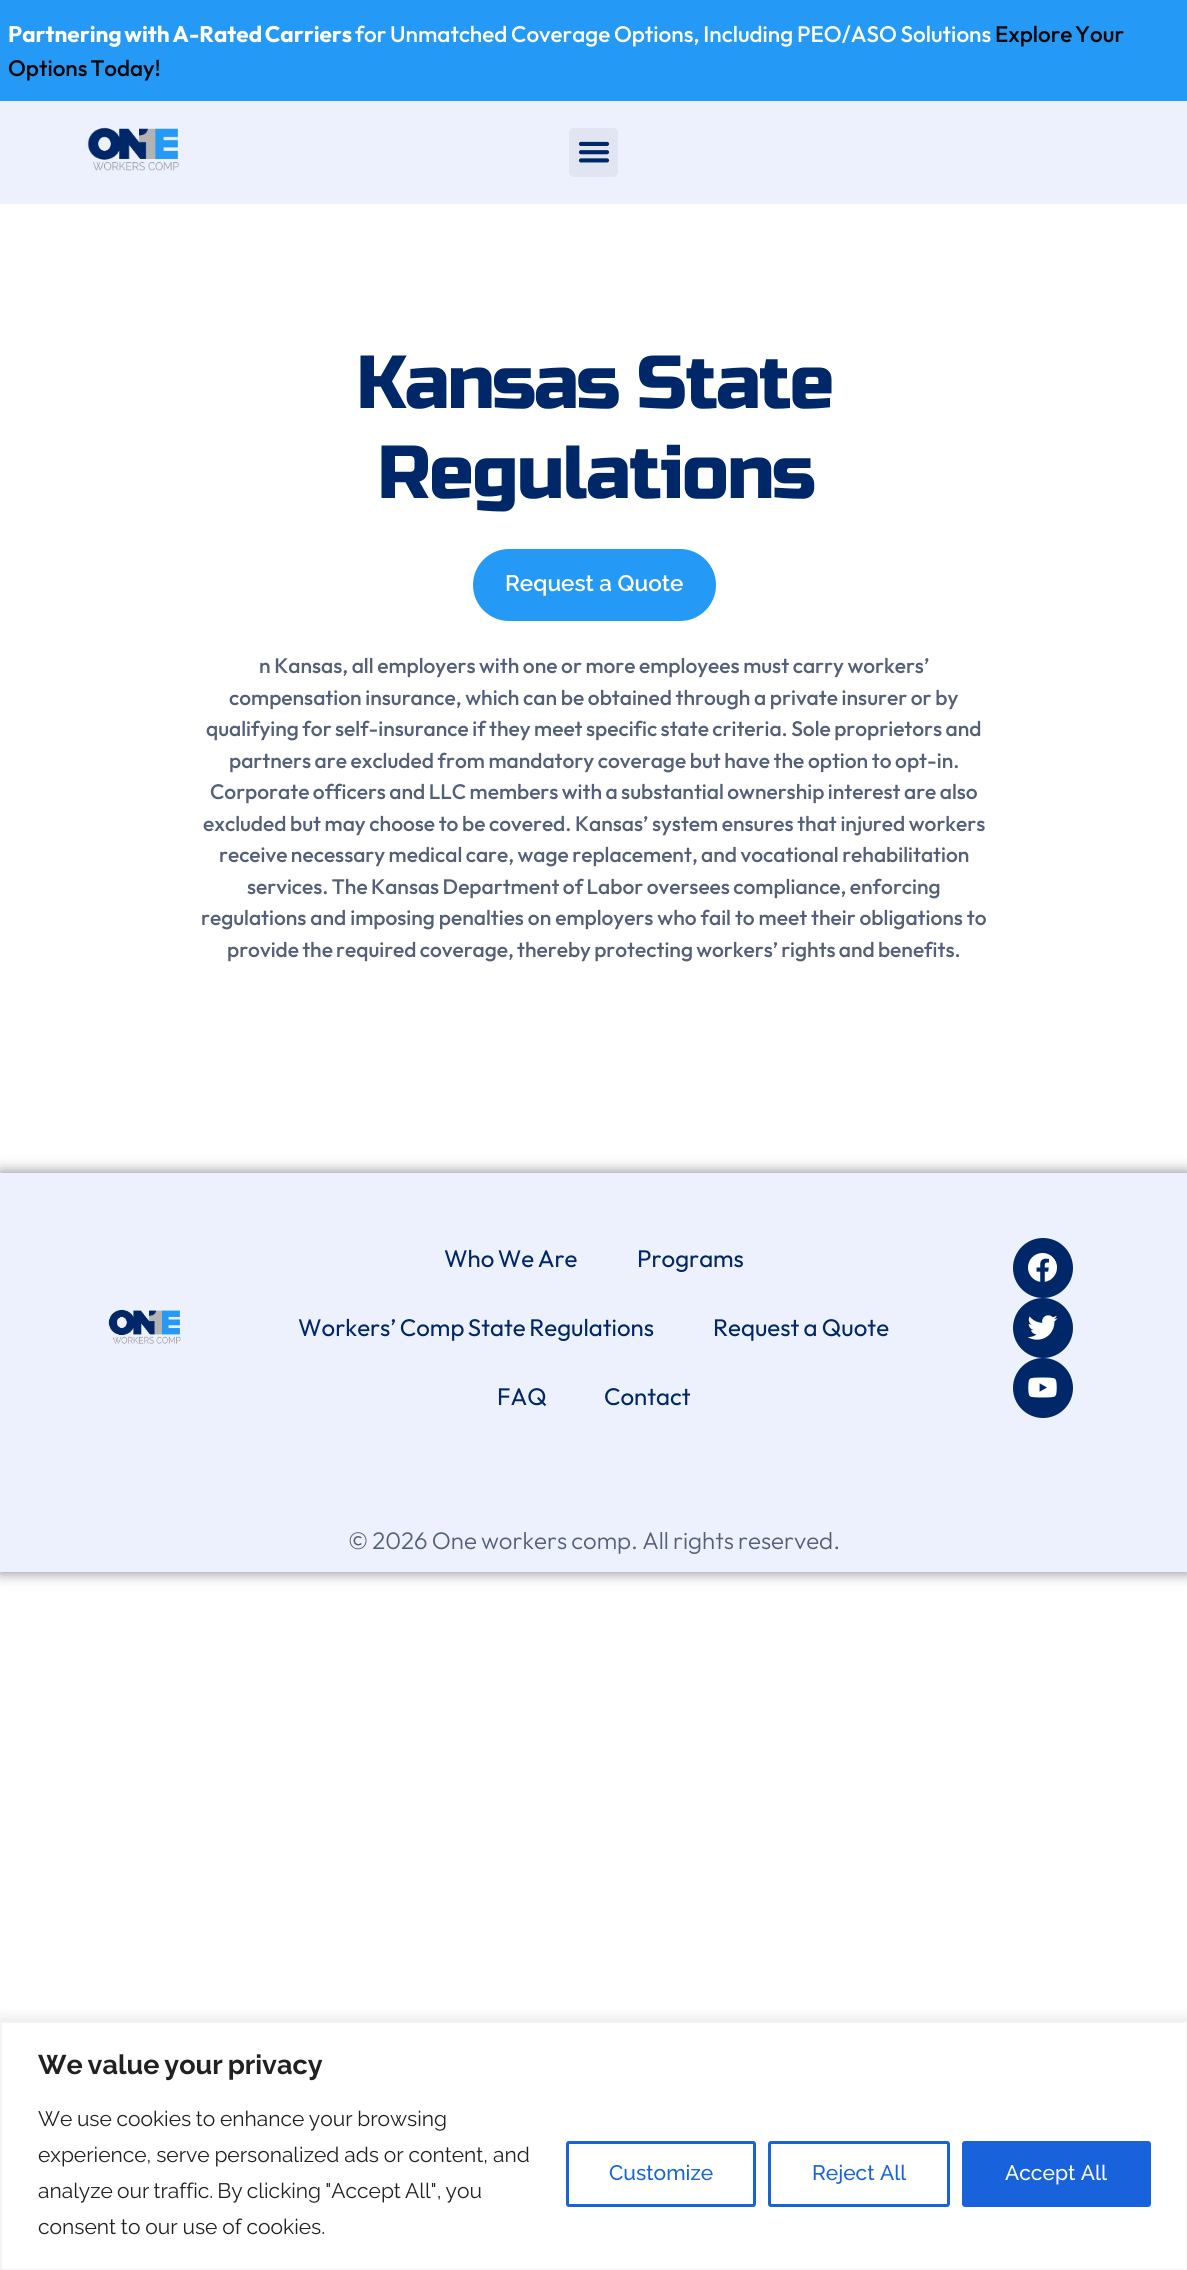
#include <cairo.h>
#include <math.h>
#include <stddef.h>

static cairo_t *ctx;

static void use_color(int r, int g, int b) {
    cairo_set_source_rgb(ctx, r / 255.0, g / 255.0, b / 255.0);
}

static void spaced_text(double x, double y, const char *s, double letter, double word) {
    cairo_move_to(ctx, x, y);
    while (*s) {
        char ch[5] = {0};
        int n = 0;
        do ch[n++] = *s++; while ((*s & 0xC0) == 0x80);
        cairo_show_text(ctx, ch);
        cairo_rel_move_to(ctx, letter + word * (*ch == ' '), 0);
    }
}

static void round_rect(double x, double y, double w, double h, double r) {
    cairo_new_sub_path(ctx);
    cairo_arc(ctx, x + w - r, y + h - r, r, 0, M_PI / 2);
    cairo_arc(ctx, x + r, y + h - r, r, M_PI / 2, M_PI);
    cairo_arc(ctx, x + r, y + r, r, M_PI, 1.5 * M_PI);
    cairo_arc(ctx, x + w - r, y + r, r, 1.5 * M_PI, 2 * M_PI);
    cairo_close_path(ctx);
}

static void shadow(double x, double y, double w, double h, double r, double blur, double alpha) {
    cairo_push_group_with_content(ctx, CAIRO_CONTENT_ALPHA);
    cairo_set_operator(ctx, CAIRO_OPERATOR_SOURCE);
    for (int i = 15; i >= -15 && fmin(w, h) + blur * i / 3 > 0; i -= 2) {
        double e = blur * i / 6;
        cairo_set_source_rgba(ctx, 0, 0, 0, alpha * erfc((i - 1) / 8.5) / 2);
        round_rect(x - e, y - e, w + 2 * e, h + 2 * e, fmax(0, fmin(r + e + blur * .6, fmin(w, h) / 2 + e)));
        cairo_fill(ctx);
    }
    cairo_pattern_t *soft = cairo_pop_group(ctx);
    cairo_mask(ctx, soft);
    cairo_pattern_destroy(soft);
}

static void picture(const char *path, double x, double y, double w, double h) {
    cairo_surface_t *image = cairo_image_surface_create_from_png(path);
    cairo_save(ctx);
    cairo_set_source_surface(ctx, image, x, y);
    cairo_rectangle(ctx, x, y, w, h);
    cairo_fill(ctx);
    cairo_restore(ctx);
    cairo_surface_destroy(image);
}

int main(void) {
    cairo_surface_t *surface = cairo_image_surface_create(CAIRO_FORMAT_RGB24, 1187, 2270);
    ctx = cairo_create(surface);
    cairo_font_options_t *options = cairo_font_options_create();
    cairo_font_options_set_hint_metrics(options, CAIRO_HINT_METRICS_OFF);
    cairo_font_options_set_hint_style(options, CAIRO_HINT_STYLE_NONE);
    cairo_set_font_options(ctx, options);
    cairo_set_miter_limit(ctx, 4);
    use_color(255, 255, 255);
    cairo_paint(ctx);
    use_color(36, 153, 246);
    cairo_rectangle(ctx, 0, 0, 1187, 101);
    cairo_fill(ctx);
    cairo_select_font_face(ctx, "Outfit", CAIRO_FONT_SLANT_NORMAL, CAIRO_FONT_WEIGHT_BOLD);
    cairo_set_font_size(ctx, 22.5);
    use_color(255, 255, 255);
    spaced_text(8, 42, "Partnering with A-Rated Carriers", 0, -1.5);
    cairo_select_font_face(ctx, "Outfit Medium", CAIRO_FONT_SLANT_NORMAL, CAIRO_FONT_WEIGHT_NORMAL);
    spaced_text(355, 42, "for Unmatched Coverage Options, Including PEO/ASO Solutions", 0, -0.75);
    use_color(7, 7, 7);
    cairo_move_to(ctx, 995, 42);
    cairo_show_text(ctx, "Explore");
    cairo_move_to(ctx, 1075, 42);
    cairo_show_text(ctx, "Your");
    spaced_text(8, 76, "Options Today!", 0, -1.5);
    use_color(237, 241, 254);
    cairo_rectangle(ctx, 0, 101, 1187, 103);
    cairo_fill(ctx);
    picture("img1.png", 87, 127, 93, 44);
    use_color(225, 229, 241);
    round_rect(569, 128, 49, 49, 5);
    cairo_fill(ctx);
    picture("img2.png", 578, 141, 32, 22);
    cairo_select_font_face(ctx, "Russo One", CAIRO_FONT_SLANT_NORMAL, CAIRO_FONT_WEIGHT_NORMAL);
    cairo_set_font_size(ctx, 75);
    use_color(0, 39, 104);
    spaced_text(356, 408, "Kansas State", -2, -2);
    spaced_text(377, 498, "Regulations", -2, 0);
    use_color(36, 153, 246);
    round_rect(473, 549, 243, 72, 36);
    cairo_fill(ctx);
    cairo_select_font_face(ctx, "Raleway SemiBold", CAIRO_FONT_SLANT_NORMAL, CAIRO_FONT_WEIGHT_NORMAL);
    cairo_set_font_size(ctx, 22.5);
    use_color(255, 255, 255);
    cairo_move_to(ctx, 505, 591);
    cairo_show_text(ctx, "Request a Quote");
    cairo_select_font_face(ctx, "Outfit Medium", CAIRO_FONT_SLANT_NORMAL, CAIRO_FONT_WEIGHT_NORMAL);
    cairo_set_font_size(ctx, 21);
    use_color(84, 96, 120);
    spaced_text(259, 673, "n Kansas, all employers with one or more employees must carry workers’", 0, -0.6);
    spaced_text(229, 705, "compensation insurance, which can be obtained through a private insurer or by", 0, -0.5);
    spaced_text(206, 736, "qualifying for self-insurance if they meet specific state criteria. Sole proprietors and", 0, -0.75);
    spaced_text(229, 768, "partners are excluded from mandatory coverage but have the option to opt-in.", 0, -0.6);
    spaced_text(210, 799, "Corporate officers and LLC members with a substantial ownership interest are also", 0, -0.75);
    spaced_text(203, 831, "excluded but may choose to be covered. Kansas’ system ensures that injured workers", 0, -0.6);
    spaced_text(219, 862, "receive necessary medical care, wage replacement, and vocational rehabilitation", 0, -0.75);
    spaced_text(247, 894, "services. The Kansas Department of Labor oversees compliance, enforcing", 0, -0.75);
    spaced_text(201, 925, "regulations and imposing penalties on employers who fail to meet their obligations to", 0, -0.25);
    spaced_text(227, 957, "provide the required coverage, thereby protecting workers’ rights and benefits.", 0, -1);
    use_color(0, 0, 0);
    shadow(0, 1173, 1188, 399, 0, 7.5, 0.5);
    use_color(237, 241, 254);
    cairo_rectangle(ctx, 0, 1173, 1187, 399);
    cairo_fill(ctx);
    picture("img3.png", 108, 1309, 73, 35);
    cairo_select_font_face(ctx, "Outfit", CAIRO_FONT_SLANT_NORMAL, CAIRO_FONT_WEIGHT_NORMAL);
    cairo_set_font_size(ctx, 24);
    use_color(0, 39, 104);
    spaced_text(444, 1267, "Who We Are", 0, -1.5);
    cairo_move_to(ctx, 637, 1267);
    cairo_show_text(ctx, "Programs");
    spaced_text(298, 1336, "Workers’ Comp State Regulations", 0, -1.5);
    spaced_text(713, 1336, "Request a Quote", 0, -0.75);
    cairo_move_to(ctx, 497, 1405);
    cairo_show_text(ctx, "FAQ");
    cairo_move_to(ctx, 604, 1405);
    cairo_show_text(ctx, "Contact");
    cairo_new_path(ctx);
    cairo_arc(ctx, 1043, 1268, 30, 0, 2 * M_PI);
    cairo_fill(ctx);
    picture("img4.png", 1028, 1253, 29, 29);
    cairo_arc(ctx, 1043, 1328, 30, 0, 2 * M_PI);
    cairo_fill(ctx);
    picture("img5.png", 1028, 1315, 30, 25);
    cairo_arc(ctx, 1043, 1388, 30, 0, 2 * M_PI);
    cairo_fill(ctx);
    picture("img6.png", 1028, 1377, 29, 21);
    cairo_select_font_face(ctx, "Outfit Light", CAIRO_FONT_SLANT_NORMAL, CAIRO_FONT_WEIGHT_NORMAL);
    use_color(84, 96, 120);
    spaced_text(348, 1549, "© 2026 One workers comp. All rights reserved.", 0, -1);
    cairo_save(ctx);
    cairo_rectangle(ctx, 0, 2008, 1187, 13);
    cairo_clip(ctx);
    use_color(172, 171, 171);
    shadow(0, 2019, 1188, 251, 0, 7.5, 0.3);
    cairo_restore(ctx);
    cairo_rectangle(ctx, 1, 2022, 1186, 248);
    use_color(244, 244, 244);
    cairo_stroke(ctx);
    cairo_select_font_face(ctx, "Raleway", CAIRO_FONT_SLANT_NORMAL, CAIRO_FONT_WEIGHT_BOLD);
    cairo_set_font_size(ctx, 27);
    use_color(33, 33, 33);
    spaced_text(38, 2074, "We value your privacy", 0, -1.5);
    cairo_select_font_face(ctx, "Raleway", CAIRO_FONT_SLANT_NORMAL, CAIRO_FONT_WEIGHT_NORMAL);
    cairo_set_font_size(ctx, 21);
    spaced_text(38, 2126, "We use cookies to enhance your browsing", 0, -0.75);
    spaced_text(38, 2162, "experience, serve personalized ads or content, and", 0, -0.5);
    spaced_text(38, 2198, "analyze our traffic. By clicking \"Accept All\", you", 0, -1.25);
    spaced_text(38, 2234, "consent to our use of cookies.", 0, -0.5);
    round_rect(567.5, 2142.5, 187, 63, 1.5);
    use_color(24, 99, 220);
    cairo_set_line_width(ctx, 3);
    cairo_stroke(ctx);
    cairo_select_font_face(ctx, "Raleway Medium", CAIRO_FONT_SLANT_NORMAL, CAIRO_FONT_WEIGHT_NORMAL);
    cairo_move_to(ctx, 609, 2180);
    cairo_show_text(ctx, "Customize");
    round_rect(769.5, 2142.5, 179, 63, 1.5);
    cairo_stroke(ctx);
    cairo_move_to(ctx, 812, 2180);
    cairo_show_text(ctx, "Reject All");
    round_rect(963.5, 2142.5, 186, 63, 1.5);
    cairo_fill_preserve(ctx);
    cairo_stroke(ctx);
    use_color(255, 255, 255);
    cairo_move_to(ctx, 1005, 2180);
    cairo_show_text(ctx, "Accept All");
    cairo_surface_write_to_png(surface, "result.png");
    cairo_font_options_destroy(options);
    cairo_destroy(ctx);
    cairo_surface_destroy(surface);
    return 0;
}
